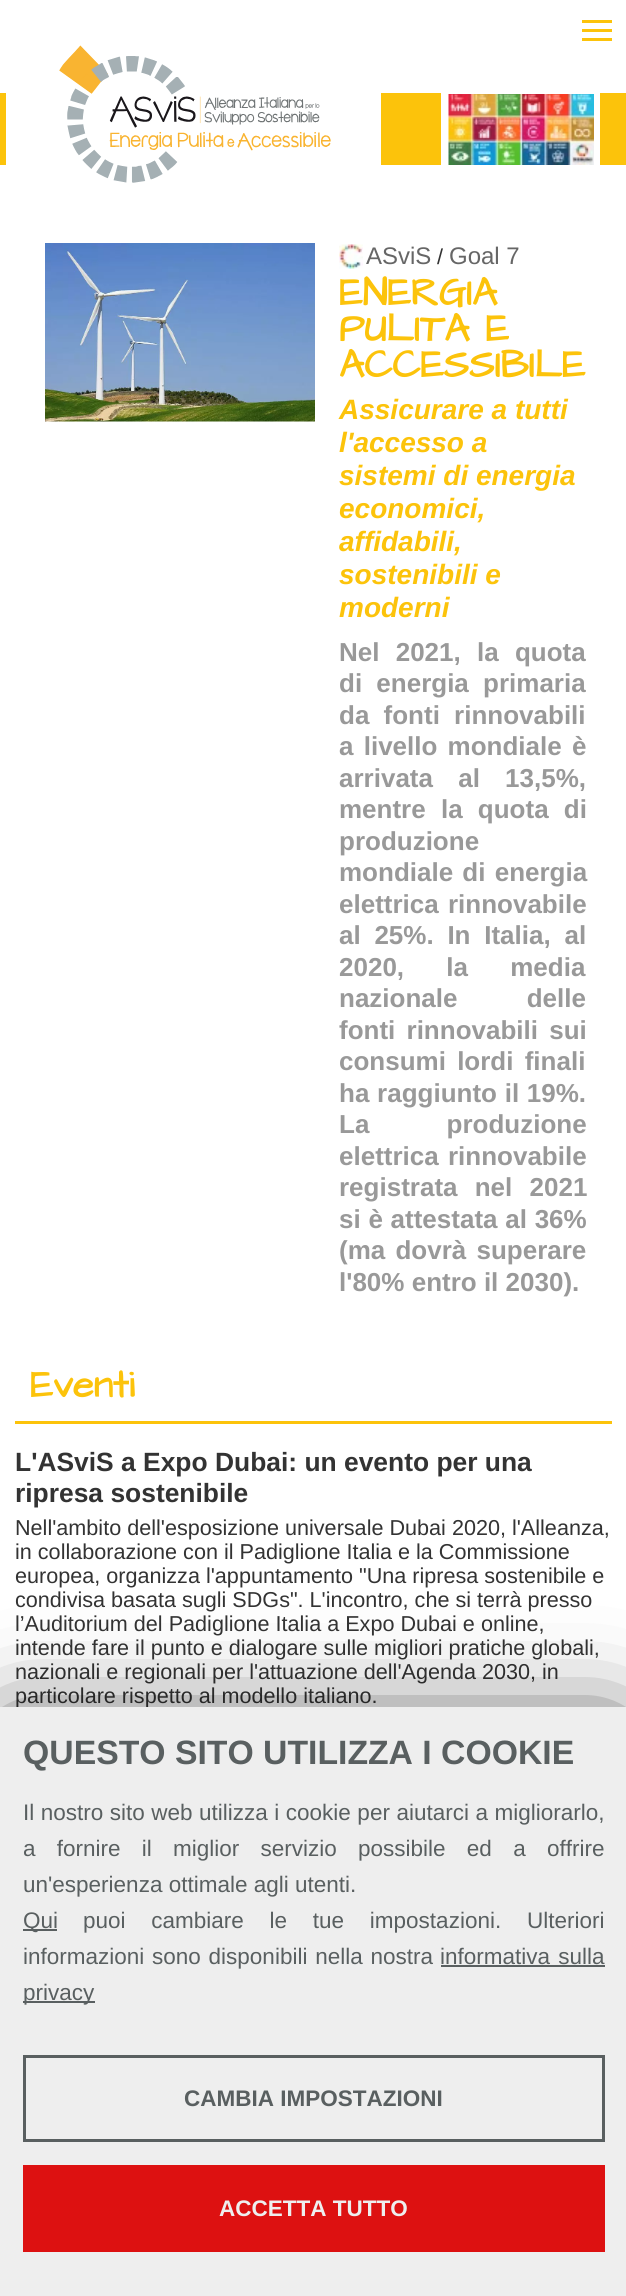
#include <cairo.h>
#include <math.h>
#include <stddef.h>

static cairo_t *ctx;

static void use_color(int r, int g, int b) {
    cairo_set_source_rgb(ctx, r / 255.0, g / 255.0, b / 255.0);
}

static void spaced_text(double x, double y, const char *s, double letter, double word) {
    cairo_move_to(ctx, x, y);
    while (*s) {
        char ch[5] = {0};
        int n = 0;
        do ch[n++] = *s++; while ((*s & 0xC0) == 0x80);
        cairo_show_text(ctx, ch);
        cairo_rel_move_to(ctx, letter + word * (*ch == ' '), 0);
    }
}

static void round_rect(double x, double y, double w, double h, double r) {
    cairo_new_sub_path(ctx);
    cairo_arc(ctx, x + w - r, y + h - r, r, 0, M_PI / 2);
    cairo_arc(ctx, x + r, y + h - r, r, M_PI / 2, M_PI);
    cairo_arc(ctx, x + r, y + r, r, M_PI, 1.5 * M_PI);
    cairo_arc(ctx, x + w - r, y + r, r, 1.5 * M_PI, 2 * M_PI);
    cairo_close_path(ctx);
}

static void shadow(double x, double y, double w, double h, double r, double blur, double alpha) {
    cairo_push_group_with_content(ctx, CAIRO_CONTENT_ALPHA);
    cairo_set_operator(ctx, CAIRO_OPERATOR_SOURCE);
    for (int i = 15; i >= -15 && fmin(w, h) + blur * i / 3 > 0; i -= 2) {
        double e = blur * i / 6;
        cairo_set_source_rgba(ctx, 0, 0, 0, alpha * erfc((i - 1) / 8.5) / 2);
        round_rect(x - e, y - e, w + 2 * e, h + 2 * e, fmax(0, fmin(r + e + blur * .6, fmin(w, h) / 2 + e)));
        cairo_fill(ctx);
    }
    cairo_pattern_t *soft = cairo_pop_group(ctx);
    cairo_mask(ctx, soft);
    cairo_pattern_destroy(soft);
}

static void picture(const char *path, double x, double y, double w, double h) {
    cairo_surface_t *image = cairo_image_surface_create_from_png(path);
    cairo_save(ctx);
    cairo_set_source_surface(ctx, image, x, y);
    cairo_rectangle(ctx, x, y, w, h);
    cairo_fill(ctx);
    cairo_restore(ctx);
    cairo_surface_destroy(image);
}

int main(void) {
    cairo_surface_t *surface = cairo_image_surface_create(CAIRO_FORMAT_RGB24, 626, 2296);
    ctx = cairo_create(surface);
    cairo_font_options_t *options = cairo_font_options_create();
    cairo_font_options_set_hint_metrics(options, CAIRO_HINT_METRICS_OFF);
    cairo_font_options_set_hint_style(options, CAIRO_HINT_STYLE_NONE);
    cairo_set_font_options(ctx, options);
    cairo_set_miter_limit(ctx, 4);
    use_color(255, 255, 255);
    cairo_paint(ctx);
    use_color(252, 195, 11);
    cairo_rectangle(ctx, 582, 20, 30, 3);
    cairo_fill(ctx);
    cairo_rectangle(ctx, 582, 29, 30, 3);
    cairo_fill(ctx);
    cairo_rectangle(ctx, 582, 38, 30, 3);
    cairo_fill(ctx);
    cairo_rectangle(ctx, 0, 93, 626, 72);
    cairo_fill(ctx);
    use_color(255, 255, 255);
    cairo_rectangle(ctx, 6, 93, 375, 72);
    cairo_fill(ctx);
    picture("img1.png", 59, 45, 272, 138);
    cairo_rectangle(ctx, 446, 94, 149, 71);
    cairo_fill(ctx);
    picture("img2.png", 448, 94, 146, 71);
    cairo_rectangle(ctx, 443.5, 91.5, 154, 76);
    cairo_set_line_width(ctx, 5);
    cairo_stroke(ctx);
    picture("img3.png", 45, 243, 270, 179);
    picture("img4.png", 339, 244, 24, 25);
    cairo_select_font_face(ctx, "Liberation Sans", CAIRO_FONT_SLANT_NORMAL, CAIRO_FONT_WEIGHT_NORMAL);
    cairo_set_font_size(ctx, 24);
    use_color(102, 102, 102);
    cairo_move_to(ctx, 366, 264);
    cairo_show_text(ctx, "ASviS");
    cairo_set_font_size(ctx, 21.6);
    use_color(51, 51, 51);
    cairo_move_to(ctx, 437, 264);
    cairo_show_text(ctx, "/");
    cairo_set_font_size(ctx, 24);
    use_color(102, 102, 102);
    cairo_move_to(ctx, 449, 264);
    cairo_show_text(ctx, "Goal 7");
    cairo_select_font_face(ctx, "Architects Daughter", CAIRO_FONT_SLANT_NORMAL, CAIRO_FONT_WEIGHT_BOLD);
    cairo_set_font_size(ctx, 39.5);
    use_color(252, 195, 11);
    cairo_move_to(ctx, 339, 305);
    cairo_show_text(ctx, "ENERGIA");
    cairo_move_to(ctx, 339, 341);
    cairo_show_text(ctx, "PULITA E");
    cairo_move_to(ctx, 339, 377);
    cairo_show_text(ctx, "ACCESSIBILE");
    cairo_select_font_face(ctx, "Liberation Sans", CAIRO_FONT_SLANT_ITALIC, CAIRO_FONT_WEIGHT_BOLD);
    cairo_set_font_size(ctx, 28);
    cairo_move_to(ctx, 339, 419);
    cairo_show_text(ctx, "Assicurare a tutti");
    cairo_move_to(ctx, 339, 452);
    cairo_show_text(ctx, "l'accesso a");
    cairo_move_to(ctx, 339, 485);
    cairo_show_text(ctx, "sistemi di energia");
    cairo_move_to(ctx, 339, 518);
    cairo_show_text(ctx, "economici,");
    cairo_move_to(ctx, 339, 551);
    cairo_show_text(ctx, "affidabili,");
    cairo_move_to(ctx, 339, 584);
    cairo_show_text(ctx, "sostenibili e");
    cairo_move_to(ctx, 339, 617);
    cairo_show_text(ctx, "moderni");
    cairo_select_font_face(ctx, "Liberation Sans", CAIRO_FONT_SLANT_NORMAL, CAIRO_FONT_WEIGHT_BOLD);
    cairo_set_font_size(ctx, 26);
    use_color(153, 153, 153);
    spaced_text(339, 661, "Nel 2021, la quota", 0, 9);
    spaced_text(339, 692, "di energia primaria", 0, 7);
    spaced_text(339, 724, "da fonti rinnovabili", 0, 7);
    spaced_text(339, 755, "a livello mondiale è", 0, 3);
    spaced_text(339, 787, "arrivata al 13,5%,", 0, 18);
    spaced_text(339, 818, "mentre la quota di", 0, 8);
    cairo_move_to(ctx, 339, 850);
    cairo_show_text(ctx, "produzione");
    spaced_text(339, 881, "mondiale di energia", 0, 2);
    spaced_text(339, 913, "elettrica rinnovabile", 0, 2);
    spaced_text(339, 944, "al 25%. In Italia, al", 0, 6.5);
    spaced_text(339, 976, "2020, la media", 0, 35);
    spaced_text(339, 1007, "nazionale delle", 0, 62);
    spaced_text(339, 1039, "fonti rinnovabili sui", 0, 4);
    spaced_text(339, 1070, "consumi lordi finali", 0, 4);
    spaced_text(339, 1102, "ha raggiunto il 19%.", 0, 0.5);
    spaced_text(339, 1133, "La produzione", 0, 70);
    spaced_text(339, 1165, "elettrica rinnovabile", 0, 2);
    spaced_text(339, 1196, "registrata nel 2021", 0, 10);
    spaced_text(339, 1228, "si è attestata al 36%", 0, 0.5);
    spaced_text(339, 1259, "(ma dovrà superare", 0, 3);
    cairo_move_to(ctx, 339, 1291);
    cairo_show_text(ctx, "l'80% entro il 2030).");
    use_color(252, 195, 11);
    cairo_rectangle(ctx, 15, 1421, 597, 3);
    cairo_fill(ctx);
    cairo_select_font_face(ctx, "Architects Daughter", CAIRO_FONT_SLANT_NORMAL, CAIRO_FONT_WEIGHT_BOLD);
    cairo_set_font_size(ctx, 38.5);
    cairo_move_to(ctx, 30, 1397);
    cairo_show_text(ctx, "Eventi");
    cairo_select_font_face(ctx, "Liberation Sans", CAIRO_FONT_SLANT_NORMAL, CAIRO_FONT_WEIGHT_BOLD);
    cairo_set_font_size(ctx, 26.4);
    use_color(51, 51, 51);
    cairo_move_to(ctx, 15, 1471);
    cairo_show_text(ctx, "L'ASviS a Expo Dubai: un evento per una");
    cairo_move_to(ctx, 15, 1502);
    cairo_show_text(ctx, "ripresa sostenibile");
    cairo_select_font_face(ctx, "Liberation Sans", CAIRO_FONT_SLANT_NORMAL, CAIRO_FONT_WEIGHT_NORMAL);
    cairo_set_font_size(ctx, 21.6);
    cairo_move_to(ctx, 15, 1535);
    cairo_show_text(ctx, "Nell'ambito dell'esposizione universale Dubai 2020, l'Alleanza,");
    cairo_move_to(ctx, 15, 1559);
    cairo_show_text(ctx, "in collaborazione con il Padiglione Italia e la Commissione");
    cairo_move_to(ctx, 15, 1583);
    cairo_show_text(ctx, "europea, organizza l'appuntamento \"Una ripresa sostenibile e");
    cairo_move_to(ctx, 15, 1607);
    cairo_show_text(ctx, "condivisa basata sugli SDGs\". L'incontro, che si terrà presso");
    cairo_move_to(ctx, 15, 1631);
    cairo_show_text(ctx, "l’Auditorium del Padiglione Italia a Expo Dubai e online,");
    cairo_move_to(ctx, 15, 1655);
    cairo_show_text(ctx, "intende fare il punto e dialogare sulle migliori pratiche globali,");
    cairo_move_to(ctx, 15, 1679);
    cairo_show_text(ctx, "nazionali e regionali per l'attuazione dell'Agenda 2030, in");
    cairo_move_to(ctx, 15, 1703);
    cairo_show_text(ctx, "particolare rispetto al modello italiano.");
    use_color(0, 0, 0);
    shadow(11, 1740, 606, 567, 0, 54, 1);
    use_color(238, 238, 238);
    cairo_rectangle(ctx, 0, 1707, 626, 589);
    cairo_fill(ctx);
    cairo_select_font_face(ctx, "Liberation Sans", CAIRO_FONT_SLANT_NORMAL, CAIRO_FONT_WEIGHT_BOLD);
    cairo_set_font_size(ctx, 33.75);
    use_color(89, 95, 96);
    cairo_move_to(ctx, 23, 1764);
    cairo_show_text(ctx, "QUESTO SITO UTILIZZA I COOKIE");
    cairo_select_font_face(ctx, "Liberation Sans", CAIRO_FONT_SLANT_NORMAL, CAIRO_FONT_WEIGHT_NORMAL);
    cairo_set_font_size(ctx, 22.5);
    spaced_text(23, 1820, "Il nostro sito web utilizza i cookie per aiutarci a migliorarlo,", 0, 0.25);
    spaced_text(23, 1856, "a fornire il miglior servizio possibile ed a offrire", 0, 15);
    cairo_move_to(ctx, 23, 1892);
    cairo_show_text(ctx, "un'esperienza ottimale agli utenti.");
    cairo_rectangle(ctx, 23, 1929, 34, 2);
    cairo_fill(ctx);
    cairo_move_to(ctx, 23, 1928);
    cairo_show_text(ctx, "Qui");
    spaced_text(83, 1928, "puoi cambiare le tue impostazioni.", 0, 19.5);
    cairo_move_to(ctx, 527, 1928);
    cairo_show_text(ctx, "Ulteriori");
    spaced_text(23, 1964, "informazioni sono disponibili nella nostra", 0, 1.5);
    spaced_text(440, 1964, "informativa sulla", 0, 2);
    cairo_rectangle(ctx, 441, 1965, 164, 2);
    cairo_fill(ctx);
    cairo_rectangle(ctx, 23, 2001, 72, 2);
    cairo_fill(ctx);
    cairo_move_to(ctx, 23, 2000);
    cairo_show_text(ctx, "privacy");
    cairo_rectangle(ctx, 24.5, 2056.5, 579, 84);
    cairo_set_line_width(ctx, 3);
    cairo_stroke(ctx);
    cairo_select_font_face(ctx, "Liberation Sans", CAIRO_FONT_SLANT_NORMAL, CAIRO_FONT_WEIGHT_BOLD);
    cairo_move_to(ctx, 184, 2106);
    cairo_show_text(ctx, "CAMBIA IMPOSTAZIONI");
    use_color(221, 17, 17);
    cairo_rectangle(ctx, 23, 2165, 582, 87);
    cairo_fill(ctx);
    use_color(238, 238, 238);
    cairo_move_to(ctx, 219, 2216);
    cairo_show_text(ctx, "ACCETTA TUTTO");
    cairo_surface_write_to_png(surface, "result.png");
    cairo_font_options_destroy(options);
    cairo_destroy(ctx);
    cairo_surface_destroy(surface);
    return 0;
}
